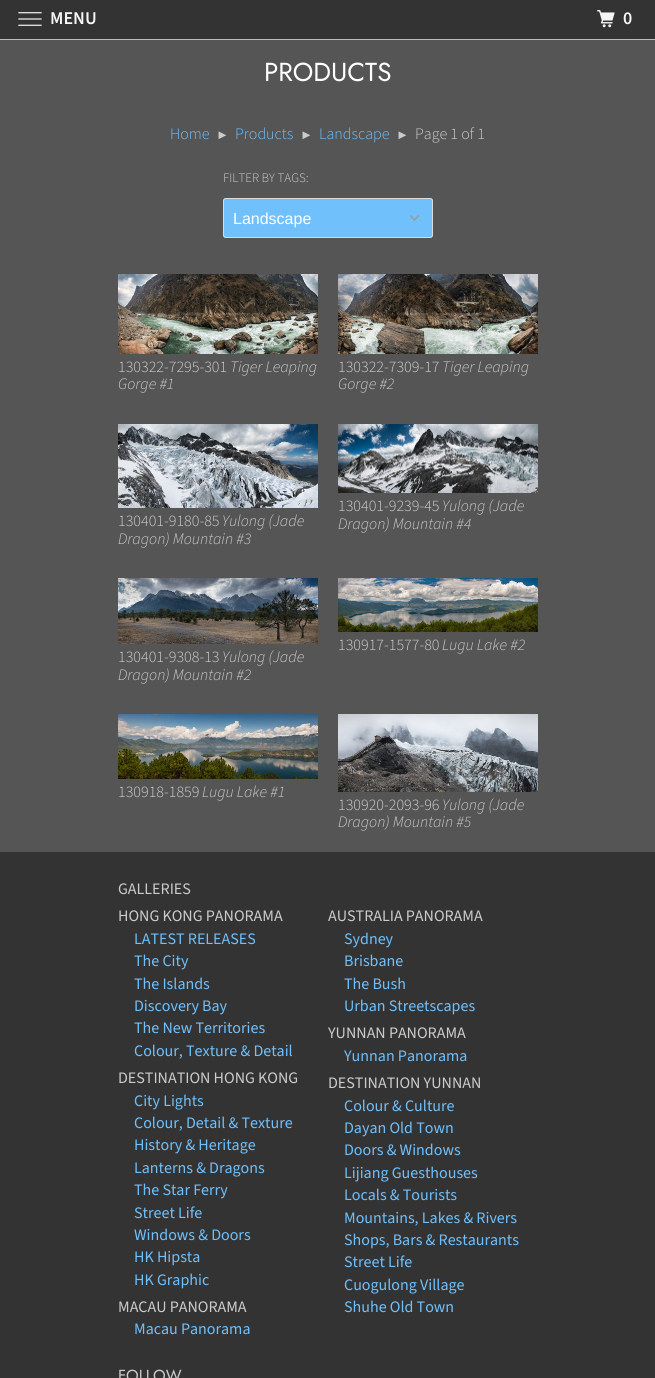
#include <cairo.h>
#include <math.h>
#include <stddef.h>

static cairo_t *ctx;

static void use_color(int r, int g, int b) {
    cairo_set_source_rgb(ctx, r / 255.0, g / 255.0, b / 255.0);
}

static void round_rect(double x, double y, double w, double h, double r) {
    cairo_new_sub_path(ctx);
    cairo_arc(ctx, x + w - r, y + h - r, r, 0, M_PI / 2);
    cairo_arc(ctx, x + r, y + h - r, r, M_PI / 2, M_PI);
    cairo_arc(ctx, x + r, y + r, r, M_PI, 1.5 * M_PI);
    cairo_arc(ctx, x + w - r, y + r, r, 1.5 * M_PI, 2 * M_PI);
    cairo_close_path(ctx);
}

static void picture(const char *path, double x, double y, double w, double h) {
    cairo_surface_t *image = cairo_image_surface_create_from_png(path);
    cairo_save(ctx);
    cairo_set_source_surface(ctx, image, x, y);
    cairo_rectangle(ctx, x, y, w, h);
    cairo_fill(ctx);
    cairo_restore(ctx);
    cairo_surface_destroy(image);
}

int main(void) {
    cairo_surface_t *surface = cairo_image_surface_create(CAIRO_FORMAT_RGB24, 655, 1378);
    ctx = cairo_create(surface);
    cairo_font_options_t *options = cairo_font_options_create();
    cairo_font_options_set_hint_metrics(options, CAIRO_HINT_METRICS_OFF);
    cairo_font_options_set_hint_style(options, CAIRO_HINT_STYLE_NONE);
    cairo_set_font_options(ctx, options);
    cairo_set_miter_limit(ctx, 4);
    use_color(51, 51, 51);
    cairo_paint(ctx);
    use_color(179, 192, 192);
    cairo_rectangle(ctx, 0, 39, 655, 1);
    cairo_fill(ctx);
    picture("img1.png", 18, 12, 24, 14);
    cairo_select_font_face(ctx, "Source Sans Pro SemiBold", CAIRO_FONT_SLANT_NORMAL, CAIRO_FONT_WEIGHT_NORMAL);
    cairo_set_font_size(ctx, 18);
    use_color(247, 247, 247);
    cairo_move_to(ctx, 50, 24);
    cairo_show_text(ctx, "MENU");
    picture("img2.png", 597, 10, 18, 18);
    cairo_move_to(ctx, 623, 24);
    cairo_show_text(ctx, "0");
    use_color(85, 85, 85);
    cairo_rectangle(ctx, 0, 40, 655, 812);
    cairo_fill(ctx);
    cairo_select_font_face(ctx, "Jost", CAIRO_FONT_SLANT_NORMAL, CAIRO_FONT_WEIGHT_NORMAL);
    cairo_set_font_size(ctx, 26);
    use_color(255, 255, 255);
    cairo_move_to(ctx, 264, 81);
    cairo_show_text(ctx, "PRODUCTS");
    cairo_select_font_face(ctx, "Source Sans Pro Light", CAIRO_FONT_SLANT_NORMAL, CAIRO_FONT_WEIGHT_NORMAL);
    cairo_set_font_size(ctx, 16);
    use_color(112, 192, 252);
    cairo_move_to(ctx, 170, 139);
    cairo_show_text(ctx, "Home");
    cairo_select_font_face(ctx, "Liberation Serif", CAIRO_FONT_SLANT_NORMAL, CAIRO_FONT_WEIGHT_NORMAL);
    cairo_set_font_size(ctx, 13);
    use_color(204, 204, 204);
    cairo_move_to(ctx, 216, 139);
    cairo_show_text(ctx, "►");
    cairo_select_font_face(ctx, "Source Sans Pro Light", CAIRO_FONT_SLANT_NORMAL, CAIRO_FONT_WEIGHT_NORMAL);
    cairo_set_font_size(ctx, 16);
    use_color(112, 192, 252);
    cairo_move_to(ctx, 235, 139);
    cairo_show_text(ctx, "Products");
    cairo_select_font_face(ctx, "Liberation Serif", CAIRO_FONT_SLANT_NORMAL, CAIRO_FONT_WEIGHT_NORMAL);
    cairo_set_font_size(ctx, 13);
    use_color(204, 204, 204);
    cairo_move_to(ctx, 300, 139);
    cairo_show_text(ctx, "►");
    cairo_select_font_face(ctx, "Source Sans Pro Light", CAIRO_FONT_SLANT_NORMAL, CAIRO_FONT_WEIGHT_NORMAL);
    cairo_set_font_size(ctx, 16);
    use_color(112, 192, 252);
    cairo_move_to(ctx, 319, 139);
    cairo_show_text(ctx, "Landscape");
    cairo_select_font_face(ctx, "Liberation Serif", CAIRO_FONT_SLANT_NORMAL, CAIRO_FONT_WEIGHT_NORMAL);
    cairo_set_font_size(ctx, 13);
    use_color(204, 204, 204);
    cairo_move_to(ctx, 396, 139);
    cairo_show_text(ctx, "►");
    cairo_select_font_face(ctx, "Source Sans Pro Light", CAIRO_FONT_SLANT_NORMAL, CAIRO_FONT_WEIGHT_NORMAL);
    cairo_set_font_size(ctx, 16);
    cairo_move_to(ctx, 415, 139);
    cairo_show_text(ctx, "Page 1 of 1");
    cairo_set_font_size(ctx, 13);
    cairo_move_to(ctx, 223, 182);
    cairo_show_text(ctx, "FILTER BY TAGS:");
    use_color(112, 192, 252);
    round_rect(223, 198, 210, 40, 3);
    cairo_fill(ctx);
    picture("img3.png", 410, 215, 9, 6);
    round_rect(223.5, 198.5, 209, 39, 2.5);
    use_color(217, 219, 220);
    cairo_set_line_width(ctx, 1);
    cairo_stroke(ctx);
    cairo_select_font_face(ctx, "Liberation Sans", CAIRO_FONT_SLANT_NORMAL, CAIRO_FONT_WEIGHT_NORMAL);
    cairo_set_font_size(ctx, 16);
    use_color(255, 255, 255);
    cairo_move_to(ctx, 233, 224);
    cairo_show_text(ctx, "Landscape");
    picture("img4.png", 118, 274, 200, 80);
    cairo_select_font_face(ctx, "Source Sans Pro Light", CAIRO_FONT_SLANT_NORMAL, CAIRO_FONT_WEIGHT_NORMAL);
    use_color(204, 204, 204);
    cairo_move_to(ctx, 118, 372);
    cairo_show_text(ctx, "130322-7295-301");
    cairo_select_font_face(ctx, "Source Sans Pro Light", CAIRO_FONT_SLANT_ITALIC, CAIRO_FONT_WEIGHT_NORMAL);
    cairo_move_to(ctx, 230, 372);
    cairo_show_text(ctx, "Tiger Leaping");
    cairo_move_to(ctx, 118, 389);
    cairo_show_text(ctx, "Gorge #1");
    picture("img5.png", 338, 274, 200, 80);
    cairo_select_font_face(ctx, "Source Sans Pro Light", CAIRO_FONT_SLANT_NORMAL, CAIRO_FONT_WEIGHT_NORMAL);
    cairo_move_to(ctx, 338, 372);
    cairo_show_text(ctx, "130322-7309-17");
    cairo_select_font_face(ctx, "Source Sans Pro Light", CAIRO_FONT_SLANT_ITALIC, CAIRO_FONT_WEIGHT_NORMAL);
    cairo_move_to(ctx, 442, 372);
    cairo_show_text(ctx, "Tiger Leaping");
    cairo_move_to(ctx, 338, 389);
    cairo_show_text(ctx, "Gorge #2");
    picture("img6.png", 118, 424, 200, 84);
    cairo_select_font_face(ctx, "Source Sans Pro Light", CAIRO_FONT_SLANT_NORMAL, CAIRO_FONT_WEIGHT_NORMAL);
    cairo_move_to(ctx, 118, 526);
    cairo_show_text(ctx, "130401-9180-85");
    cairo_select_font_face(ctx, "Source Sans Pro Light", CAIRO_FONT_SLANT_ITALIC, CAIRO_FONT_WEIGHT_NORMAL);
    cairo_move_to(ctx, 222, 526);
    cairo_show_text(ctx, "Yulong (Jade");
    cairo_move_to(ctx, 118, 544);
    cairo_show_text(ctx, "Dragon) Mountain #3");
    picture("img7.png", 338, 424, 200, 69);
    cairo_select_font_face(ctx, "Source Sans Pro Light", CAIRO_FONT_SLANT_NORMAL, CAIRO_FONT_WEIGHT_NORMAL);
    cairo_move_to(ctx, 338, 511);
    cairo_show_text(ctx, "130401-9239-45");
    cairo_select_font_face(ctx, "Source Sans Pro Light", CAIRO_FONT_SLANT_ITALIC, CAIRO_FONT_WEIGHT_NORMAL);
    cairo_move_to(ctx, 442, 511);
    cairo_show_text(ctx, "Yulong (Jade");
    cairo_move_to(ctx, 338, 529);
    cairo_show_text(ctx, "Dragon) Mountain #4");
    picture("img8.png", 338, 578, 200, 54);
    cairo_select_font_face(ctx, "Source Sans Pro Light", CAIRO_FONT_SLANT_NORMAL, CAIRO_FONT_WEIGHT_NORMAL);
    cairo_move_to(ctx, 338, 650);
    cairo_show_text(ctx, "130917-1577-80");
    cairo_select_font_face(ctx, "Source Sans Pro Light", CAIRO_FONT_SLANT_ITALIC, CAIRO_FONT_WEIGHT_NORMAL);
    cairo_move_to(ctx, 442, 650);
    cairo_show_text(ctx, "Lugu Lake #2");
    picture("img9.png", 118, 578, 200, 66);
    cairo_select_font_face(ctx, "Source Sans Pro Light", CAIRO_FONT_SLANT_NORMAL, CAIRO_FONT_WEIGHT_NORMAL);
    cairo_move_to(ctx, 118, 662);
    cairo_show_text(ctx, "130401-9308-13");
    cairo_select_font_face(ctx, "Source Sans Pro Light", CAIRO_FONT_SLANT_ITALIC, CAIRO_FONT_WEIGHT_NORMAL);
    cairo_move_to(ctx, 222, 662);
    cairo_show_text(ctx, "Yulong (Jade");
    cairo_move_to(ctx, 118, 680);
    cairo_show_text(ctx, "Dragon) Mountain #2");
    picture("img10.png", 118, 714, 200, 65);
    cairo_select_font_face(ctx, "Source Sans Pro Light", CAIRO_FONT_SLANT_NORMAL, CAIRO_FONT_WEIGHT_NORMAL);
    cairo_move_to(ctx, 118, 797);
    cairo_show_text(ctx, "130918-1859");
    cairo_select_font_face(ctx, "Source Sans Pro Light", CAIRO_FONT_SLANT_ITALIC, CAIRO_FONT_WEIGHT_NORMAL);
    cairo_move_to(ctx, 202, 797);
    cairo_show_text(ctx, "Lugu Lake #1");
    picture("img11.png", 338, 714, 200, 78);
    cairo_select_font_face(ctx, "Source Sans Pro Light", CAIRO_FONT_SLANT_NORMAL, CAIRO_FONT_WEIGHT_NORMAL);
    cairo_move_to(ctx, 338, 810);
    cairo_show_text(ctx, "130920-2093-96");
    cairo_select_font_face(ctx, "Source Sans Pro Light", CAIRO_FONT_SLANT_ITALIC, CAIRO_FONT_WEIGHT_NORMAL);
    cairo_move_to(ctx, 442, 810);
    cairo_show_text(ctx, "Yulong (Jade");
    cairo_move_to(ctx, 338, 827);
    cairo_show_text(ctx, "Dragon) Mountain #5");
    cairo_select_font_face(ctx, "Source Sans Pro", CAIRO_FONT_SLANT_NORMAL, CAIRO_FONT_WEIGHT_NORMAL);
    cairo_move_to(ctx, 118, 894);
    cairo_show_text(ctx, "GALLERIES");
    cairo_move_to(ctx, 118, 921);
    cairo_show_text(ctx, "HONG KONG PANORAMA");
    use_color(112, 192, 252);
    cairo_move_to(ctx, 134, 944);
    cairo_show_text(ctx, "LATEST RELEASES");
    cairo_move_to(ctx, 134, 966);
    cairo_show_text(ctx, "The City");
    cairo_move_to(ctx, 134, 989);
    cairo_show_text(ctx, "The Islands");
    cairo_move_to(ctx, 134, 1011);
    cairo_show_text(ctx, "Discovery Bay");
    cairo_move_to(ctx, 134, 1033);
    cairo_show_text(ctx, "The New Territories");
    cairo_move_to(ctx, 134, 1056);
    cairo_show_text(ctx, "Colour, Texture & Detail");
    use_color(204, 204, 204);
    cairo_move_to(ctx, 118, 1083);
    cairo_show_text(ctx, "DESTINATION HONG KONG");
    use_color(112, 192, 252);
    cairo_move_to(ctx, 134, 1106);
    cairo_show_text(ctx, "City Lights");
    cairo_move_to(ctx, 134, 1128);
    cairo_show_text(ctx, "Colour, Detail & Texture");
    cairo_move_to(ctx, 134, 1150);
    cairo_show_text(ctx, "History & Heritage");
    cairo_move_to(ctx, 134, 1173);
    cairo_show_text(ctx, "Lanterns & Dragons");
    cairo_move_to(ctx, 134, 1195);
    cairo_show_text(ctx, "The Star Ferry");
    cairo_move_to(ctx, 134, 1218);
    cairo_show_text(ctx, "Street Life");
    cairo_move_to(ctx, 134, 1240);
    cairo_show_text(ctx, "Windows & Doors");
    cairo_move_to(ctx, 134, 1262);
    cairo_show_text(ctx, "HK Hipsta");
    cairo_move_to(ctx, 134, 1285);
    cairo_show_text(ctx, "HK Graphic");
    use_color(204, 204, 204);
    cairo_move_to(ctx, 118, 1312);
    cairo_show_text(ctx, "MACAU PANORAMA");
    use_color(112, 192, 252);
    cairo_move_to(ctx, 134, 1334);
    cairo_show_text(ctx, "Macau Panorama");
    use_color(204, 204, 204);
    cairo_move_to(ctx, 328, 921);
    cairo_show_text(ctx, "AUSTRALIA PANORAMA");
    use_color(112, 192, 252);
    cairo_move_to(ctx, 344, 944);
    cairo_show_text(ctx, "Sydney");
    cairo_move_to(ctx, 344, 966);
    cairo_show_text(ctx, "Brisbane");
    cairo_move_to(ctx, 344, 989);
    cairo_show_text(ctx, "The Bush");
    cairo_move_to(ctx, 344, 1011);
    cairo_show_text(ctx, "Urban Streetscapes");
    use_color(204, 204, 204);
    cairo_move_to(ctx, 328, 1038);
    cairo_show_text(ctx, "YUNNAN PANORAMA");
    use_color(112, 192, 252);
    cairo_move_to(ctx, 344, 1061);
    cairo_show_text(ctx, "Yunnan Panorama");
    use_color(204, 204, 204);
    cairo_move_to(ctx, 328, 1088);
    cairo_show_text(ctx, "DESTINATION YUNNAN");
    use_color(112, 192, 252);
    cairo_move_to(ctx, 344, 1111);
    cairo_show_text(ctx, "Colour & Culture");
    cairo_move_to(ctx, 344, 1133);
    cairo_show_text(ctx, "Dayan Old Town");
    cairo_move_to(ctx, 344, 1155);
    cairo_show_text(ctx, "Doors & Windows");
    cairo_move_to(ctx, 344, 1178);
    cairo_show_text(ctx, "Lijiang Guesthouses");
    cairo_move_to(ctx, 344, 1200);
    cairo_show_text(ctx, "Locals & Tourists");
    cairo_move_to(ctx, 344, 1223);
    cairo_show_text(ctx, "Mountains, Lakes & Rivers");
    cairo_move_to(ctx, 344, 1245);
    cairo_show_text(ctx, "Shops, Bars & Restaurants");
    cairo_move_to(ctx, 344, 1267);
    cairo_show_text(ctx, "Street Life");
    cairo_move_to(ctx, 344, 1290);
    cairo_show_text(ctx, "Cuogulong Village");
    cairo_move_to(ctx, 344, 1312);
    cairo_show_text(ctx, "Shuhe Old Town");
    cairo_select_font_face(ctx, "Jost", CAIRO_FONT_SLANT_NORMAL, CAIRO_FONT_WEIGHT_NORMAL);
    use_color(204, 204, 204);
    cairo_move_to(ctx, 118, 1381);
    cairo_show_text(ctx, "FOLLOW");
    cairo_surface_write_to_png(surface, "result.png");
    cairo_font_options_destroy(options);
    cairo_destroy(ctx);
    cairo_surface_destroy(surface);
    return 0;
}
